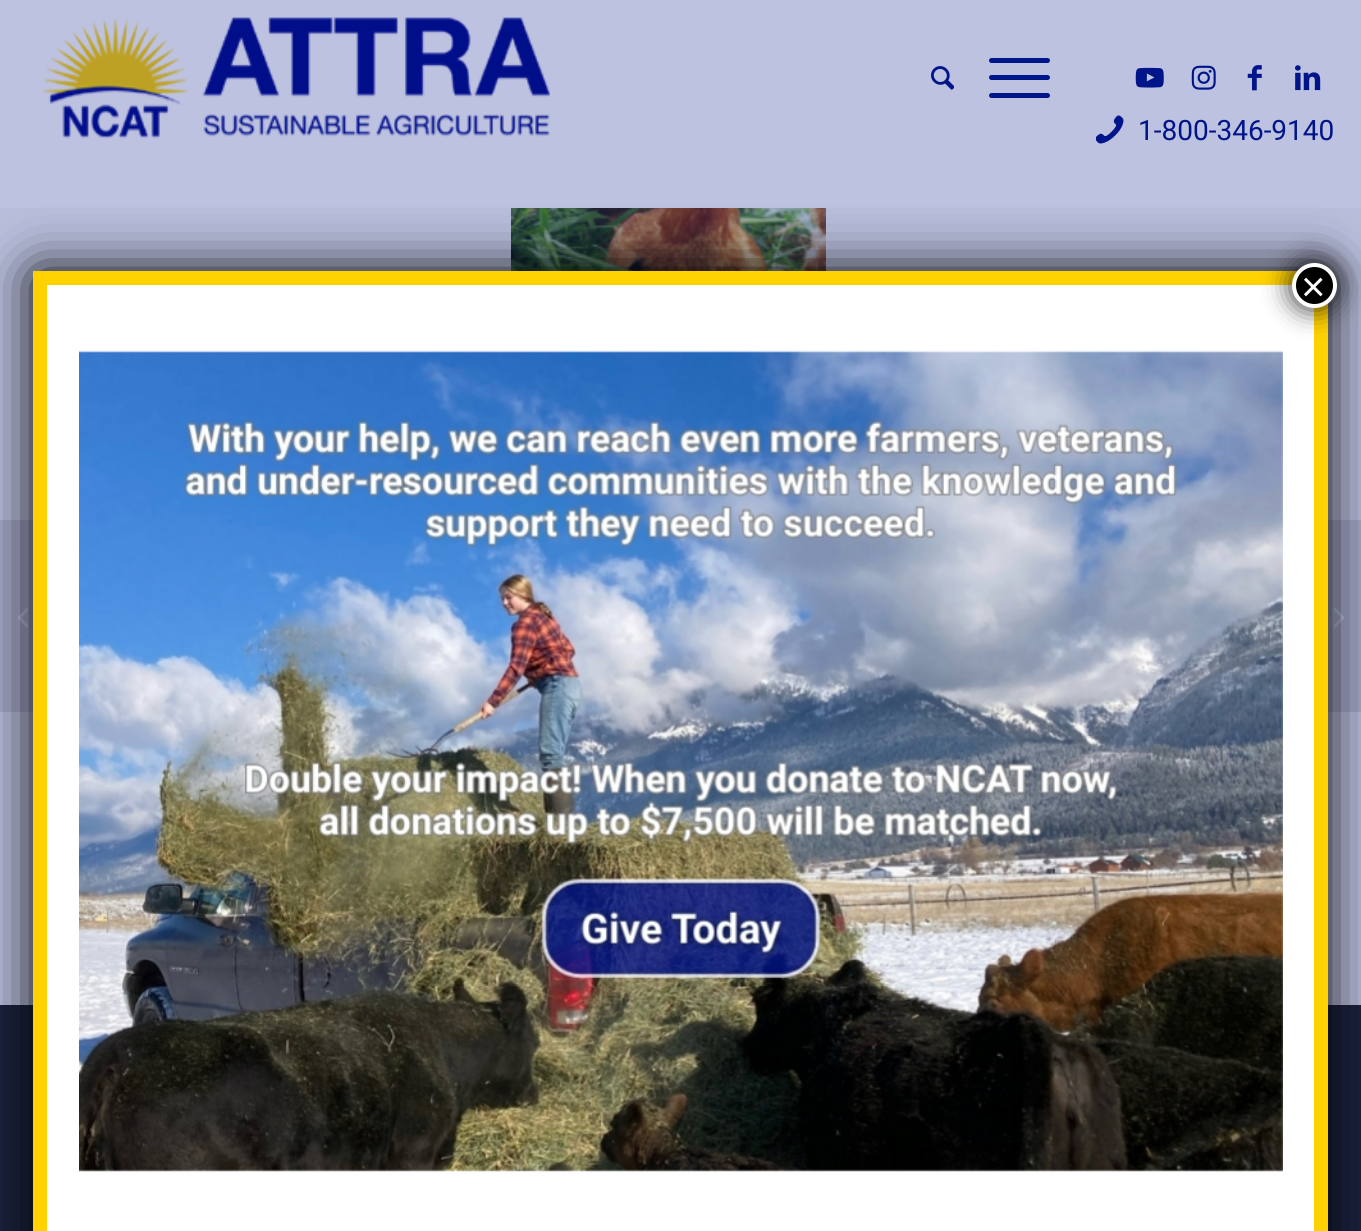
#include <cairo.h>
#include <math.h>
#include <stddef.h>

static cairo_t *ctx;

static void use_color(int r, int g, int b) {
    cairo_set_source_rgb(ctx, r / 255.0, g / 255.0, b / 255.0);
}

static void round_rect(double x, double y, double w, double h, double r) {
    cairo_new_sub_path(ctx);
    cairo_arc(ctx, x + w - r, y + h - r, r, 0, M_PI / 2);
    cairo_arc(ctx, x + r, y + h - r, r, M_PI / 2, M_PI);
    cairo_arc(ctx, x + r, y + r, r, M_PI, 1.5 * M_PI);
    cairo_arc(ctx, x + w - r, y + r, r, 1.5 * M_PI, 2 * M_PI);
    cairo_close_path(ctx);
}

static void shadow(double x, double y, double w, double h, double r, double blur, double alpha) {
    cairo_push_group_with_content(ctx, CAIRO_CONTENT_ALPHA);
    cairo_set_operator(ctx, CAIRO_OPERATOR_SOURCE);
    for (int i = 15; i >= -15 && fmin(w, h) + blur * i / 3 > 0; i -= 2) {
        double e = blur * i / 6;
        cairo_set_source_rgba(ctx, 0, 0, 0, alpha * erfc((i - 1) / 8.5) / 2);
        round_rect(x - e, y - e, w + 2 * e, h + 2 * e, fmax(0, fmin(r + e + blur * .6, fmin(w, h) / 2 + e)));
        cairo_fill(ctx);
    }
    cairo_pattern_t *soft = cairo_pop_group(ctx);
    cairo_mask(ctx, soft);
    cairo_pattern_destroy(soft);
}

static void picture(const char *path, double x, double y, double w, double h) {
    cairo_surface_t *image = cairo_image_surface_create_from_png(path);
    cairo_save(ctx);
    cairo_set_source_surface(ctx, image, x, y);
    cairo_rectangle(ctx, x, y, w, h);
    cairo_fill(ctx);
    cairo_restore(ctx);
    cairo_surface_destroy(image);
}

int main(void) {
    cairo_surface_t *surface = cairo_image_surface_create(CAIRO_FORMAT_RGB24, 1361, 1231);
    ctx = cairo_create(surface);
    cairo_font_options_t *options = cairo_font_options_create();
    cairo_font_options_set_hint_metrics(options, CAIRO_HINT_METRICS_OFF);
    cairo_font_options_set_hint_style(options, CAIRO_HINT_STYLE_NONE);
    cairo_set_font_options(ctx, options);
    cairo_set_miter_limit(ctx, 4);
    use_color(184, 189, 219);
    cairo_paint(ctx);
    use_color(189, 194, 224);
    cairo_rectangle(ctx, 0, 0, 1361, 208);
    cairo_fill(ctx);
    picture("img1.png", 42, 17, 508, 122);
    picture("img2.png", 931, 66, 23, 24);
    use_color(0, 21, 137);
    round_rect(989, 75, 61, 5, 2.5);
    cairo_fill(ctx);
    round_rect(989, 58, 61, 5, 2.5);
    cairo_fill(ctx);
    round_rect(989, 93, 61, 5, 2.5);
    cairo_fill(ctx);
    picture("img3.png", 1135, 67, 29, 21);
    picture("img4.png", 1191, 65, 25, 25);
    picture("img5.png", 1247, 65, 15, 26);
    picture("img6.png", 1295, 65, 26, 26);
    picture("img7.png", 1096, 115, 28, 29);
    cairo_select_font_face(ctx, "Roboto", CAIRO_FONT_SLANT_NORMAL, CAIRO_FONT_WEIGHT_NORMAL);
    cairo_set_font_size(ctx, 28);
    cairo_move_to(ctx, 1138, 140);
    cairo_show_text(ctx, "1-800-346-9140");
    picture("img8.png", 511, 208, 315, 63);
    use_color(165, 170, 201);
    cairo_rectangle(ctx, 0, 520, 33, 192);
    cairo_fill(ctx);
    picture("img9.png", 18, 608, 10, 20);
    cairo_rectangle(ctx, 1328, 520, 33, 192);
    cairo_fill(ctx);
    picture("img10.png", 1334, 608, 10, 20);
    use_color(27, 33, 63);
    cairo_rectangle(ctx, 0, 1005, 1361, 226);
    cairo_fill(ctx);
    use_color(2, 2, 2);
    shadow(33, 271, 1295, 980, 5, 26, 1);
    use_color(255, 255, 255);
    cairo_rectangle(ctx, 47, 285, 1267, 946);
    cairo_fill(ctx);
    cairo_new_path(ctx);
    cairo_move_to(ctx, 40, 278);
    cairo_line_to(ctx, 1321, 278);
    cairo_line_to(ctx, 1321, 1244);
    cairo_line_to(ctx, 40, 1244);
    cairo_close_path(ctx);
    use_color(255, 210, 0);
    cairo_set_line_width(ctx, 14);
    cairo_stroke(ctx);
    use_color(2, 2, 2);
    shadow(1290, 261, 49, 49, 24.5, 13, 0.75);
    use_color(0, 0, 0);
    cairo_arc(ctx, 1314.5, 285.5, 20.5, 0, 2 * M_PI);
    cairo_fill_preserve(ctx);
    use_color(255, 255, 255);
    cairo_set_line_width(ctx, 4);
    cairo_stroke(ctx);
    cairo_select_font_face(ctx, "Liberation Sans", CAIRO_FONT_SLANT_NORMAL, CAIRO_FONT_WEIGHT_NORMAL);
    cairo_set_font_size(ctx, 42);
    cairo_move_to(ctx, 1301, 301);
    cairo_show_text(ctx, "×");
    picture("img11.png", 79, 350, 1204, 822);
    cairo_surface_write_to_png(surface, "result.png");
    cairo_font_options_destroy(options);
    cairo_destroy(ctx);
    cairo_surface_destroy(surface);
    return 0;
}
